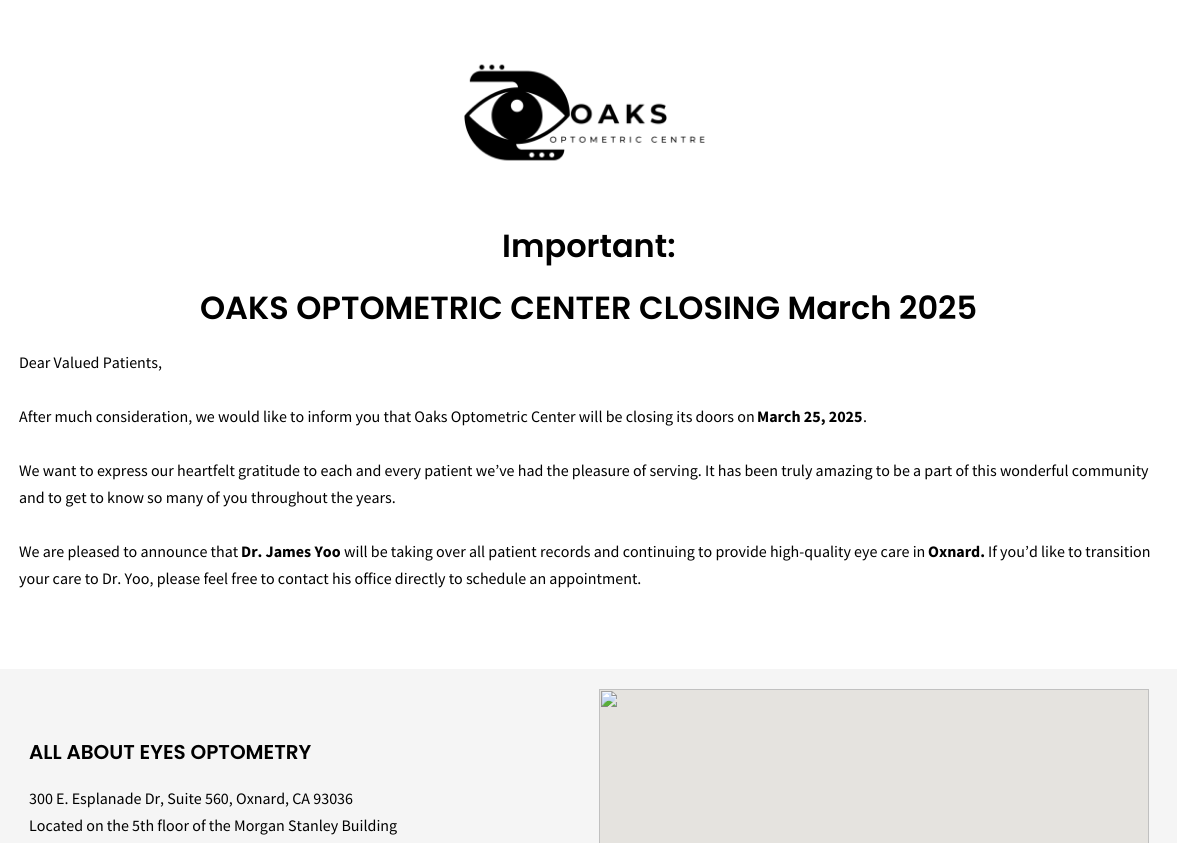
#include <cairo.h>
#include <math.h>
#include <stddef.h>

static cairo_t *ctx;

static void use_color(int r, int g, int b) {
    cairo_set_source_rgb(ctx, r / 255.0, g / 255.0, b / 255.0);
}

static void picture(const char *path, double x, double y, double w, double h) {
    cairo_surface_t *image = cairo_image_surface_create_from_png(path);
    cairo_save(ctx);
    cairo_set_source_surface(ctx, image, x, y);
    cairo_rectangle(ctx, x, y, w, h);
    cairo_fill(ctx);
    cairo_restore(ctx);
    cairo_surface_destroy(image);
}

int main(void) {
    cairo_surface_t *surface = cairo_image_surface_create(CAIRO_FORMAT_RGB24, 1177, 843);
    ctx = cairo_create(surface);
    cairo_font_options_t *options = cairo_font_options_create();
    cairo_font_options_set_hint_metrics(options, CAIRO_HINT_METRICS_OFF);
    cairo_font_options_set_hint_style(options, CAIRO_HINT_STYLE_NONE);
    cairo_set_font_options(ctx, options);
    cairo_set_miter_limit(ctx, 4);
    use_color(255, 255, 255);
    cairo_paint(ctx);
    picture("img1.png", 464, 64, 241, 97);
    cairo_select_font_face(ctx, "Poppins SemiBold", CAIRO_FONT_SLANT_NORMAL, CAIRO_FONT_WEIGHT_NORMAL);
    cairo_set_font_size(ctx, 32);
    use_color(0, 0, 0);
    cairo_move_to(ctx, 502, 257);
    cairo_show_text(ctx, "Important:");
    cairo_move_to(ctx, 200, 319);
    cairo_show_text(ctx, "OAKS OPTOMETRIC CENTER CLOSING March 2025");
    cairo_select_font_face(ctx, "Source Sans Pro", CAIRO_FONT_SLANT_NORMAL, CAIRO_FONT_WEIGHT_NORMAL);
    cairo_set_font_size(ctx, 16);
    cairo_move_to(ctx, 19, 368);
    cairo_show_text(ctx, "Dear Valued Patients,");
    cairo_move_to(ctx, 19, 422);
    cairo_show_text(ctx, "After much consideration, we would like to inform you that Oaks Optometric Center will be closing its doors on");
    cairo_select_font_face(ctx, "Source Sans Pro", CAIRO_FONT_SLANT_NORMAL, CAIRO_FONT_WEIGHT_BOLD);
    cairo_move_to(ctx, 757, 422);
    cairo_show_text(ctx, "March 25, 2025");
    cairo_select_font_face(ctx, "Source Sans Pro", CAIRO_FONT_SLANT_NORMAL, CAIRO_FONT_WEIGHT_NORMAL);
    cairo_move_to(ctx, 863, 422);
    cairo_show_text(ctx, ".");
    cairo_move_to(ctx, 19, 476);
    cairo_show_text(ctx, "We want to express our heartfelt gratitude to each and every patient we’ve had the pleasure of serving. It has been truly amazing to be a part of this wonderful community");
    cairo_move_to(ctx, 19, 503);
    cairo_show_text(ctx, "and to get to know so many of you throughout the years.");
    cairo_move_to(ctx, 19, 557);
    cairo_show_text(ctx, "We are pleased to announce that");
    cairo_select_font_face(ctx, "Source Sans Pro", CAIRO_FONT_SLANT_NORMAL, CAIRO_FONT_WEIGHT_BOLD);
    cairo_move_to(ctx, 241, 557);
    cairo_show_text(ctx, "Dr. James Yoo");
    cairo_select_font_face(ctx, "Source Sans Pro", CAIRO_FONT_SLANT_NORMAL, CAIRO_FONT_WEIGHT_NORMAL);
    cairo_move_to(ctx, 344, 557);
    cairo_show_text(ctx, "will be taking over all patient records and continuing to provide high-quality eye care in");
    cairo_select_font_face(ctx, "Source Sans Pro", CAIRO_FONT_SLANT_NORMAL, CAIRO_FONT_WEIGHT_BOLD);
    cairo_move_to(ctx, 928, 557);
    cairo_show_text(ctx, "Oxnard.");
    cairo_select_font_face(ctx, "Source Sans Pro", CAIRO_FONT_SLANT_NORMAL, CAIRO_FONT_WEIGHT_NORMAL);
    cairo_move_to(ctx, 988, 557);
    cairo_show_text(ctx, "If you’d like to transition");
    cairo_move_to(ctx, 19, 584);
    cairo_show_text(ctx, "your care to Dr. Yoo, please feel free to contact his office directly to schedule an appointment.");
    use_color(245, 245, 245);
    cairo_rectangle(ctx, 0, 669, 1177, 174);
    cairo_fill(ctx);
    cairo_select_font_face(ctx, "Poppins SemiBold", CAIRO_FONT_SLANT_NORMAL, CAIRO_FONT_WEIGHT_NORMAL);
    cairo_set_font_size(ctx, 20);
    use_color(0, 0, 0);
    cairo_move_to(ctx, 29, 759);
    cairo_show_text(ctx, "ALL ABOUT EYES OPTOMETRY");
    cairo_select_font_face(ctx, "Source Sans Pro", CAIRO_FONT_SLANT_NORMAL, CAIRO_FONT_WEIGHT_NORMAL);
    cairo_set_font_size(ctx, 16);
    cairo_move_to(ctx, 29, 804);
    cairo_show_text(ctx, "300 E. Esplanade Dr, Suite 560, Oxnard, CA 93036");
    cairo_move_to(ctx, 29, 831);
    cairo_show_text(ctx, "Located on the 5th floor of the Morgan Stanley Building");
    picture("img2.png", 599, 689, 550, 154);
    cairo_surface_write_to_png(surface, "result.png");
    cairo_font_options_destroy(options);
    cairo_destroy(ctx);
    cairo_surface_destroy(surface);
    return 0;
}
